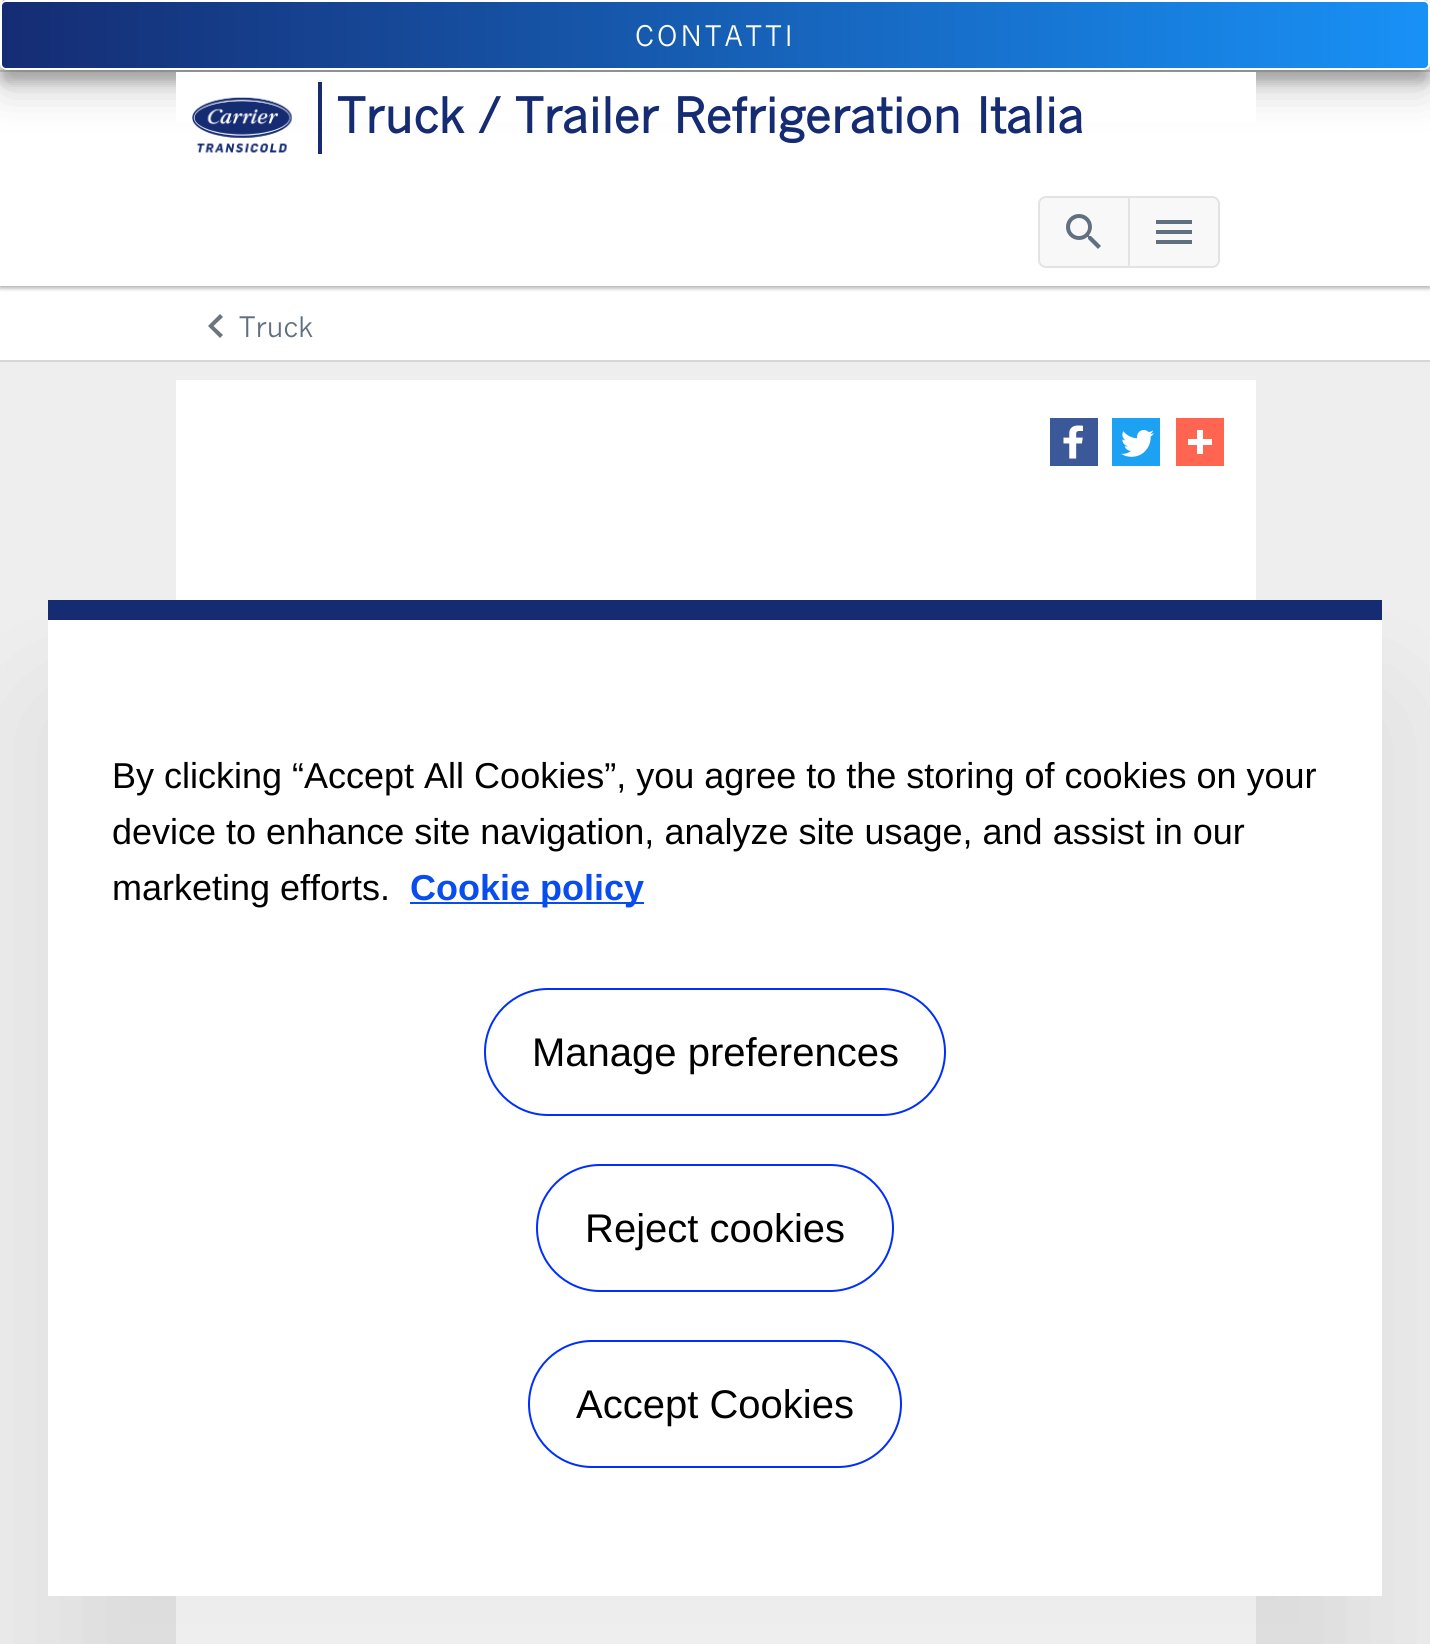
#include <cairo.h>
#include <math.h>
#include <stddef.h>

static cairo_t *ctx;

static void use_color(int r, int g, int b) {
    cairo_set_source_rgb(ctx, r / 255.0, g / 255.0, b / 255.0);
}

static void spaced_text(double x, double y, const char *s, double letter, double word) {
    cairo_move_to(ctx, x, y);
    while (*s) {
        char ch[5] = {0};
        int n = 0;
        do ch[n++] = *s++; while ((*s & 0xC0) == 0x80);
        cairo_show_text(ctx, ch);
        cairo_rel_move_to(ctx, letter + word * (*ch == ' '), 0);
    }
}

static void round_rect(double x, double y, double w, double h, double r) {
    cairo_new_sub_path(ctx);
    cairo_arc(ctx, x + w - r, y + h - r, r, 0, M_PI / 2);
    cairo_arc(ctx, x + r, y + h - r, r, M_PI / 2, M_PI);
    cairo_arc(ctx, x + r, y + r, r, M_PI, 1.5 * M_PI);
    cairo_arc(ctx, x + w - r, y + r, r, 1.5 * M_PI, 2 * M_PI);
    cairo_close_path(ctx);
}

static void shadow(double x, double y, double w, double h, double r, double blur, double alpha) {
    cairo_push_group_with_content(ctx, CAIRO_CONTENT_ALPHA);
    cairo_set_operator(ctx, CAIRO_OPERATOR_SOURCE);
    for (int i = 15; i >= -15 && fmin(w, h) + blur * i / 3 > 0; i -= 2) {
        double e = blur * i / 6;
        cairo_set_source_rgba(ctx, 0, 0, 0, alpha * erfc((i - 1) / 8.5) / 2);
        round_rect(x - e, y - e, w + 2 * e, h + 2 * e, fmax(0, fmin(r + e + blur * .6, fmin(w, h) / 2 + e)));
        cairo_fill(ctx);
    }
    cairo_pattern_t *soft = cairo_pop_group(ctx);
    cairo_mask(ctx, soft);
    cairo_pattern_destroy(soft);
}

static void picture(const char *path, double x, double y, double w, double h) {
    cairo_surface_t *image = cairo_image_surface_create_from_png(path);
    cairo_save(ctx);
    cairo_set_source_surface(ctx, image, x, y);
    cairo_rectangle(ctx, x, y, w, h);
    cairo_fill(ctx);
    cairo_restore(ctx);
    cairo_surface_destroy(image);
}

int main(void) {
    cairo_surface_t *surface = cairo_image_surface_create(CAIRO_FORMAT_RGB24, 1430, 1644);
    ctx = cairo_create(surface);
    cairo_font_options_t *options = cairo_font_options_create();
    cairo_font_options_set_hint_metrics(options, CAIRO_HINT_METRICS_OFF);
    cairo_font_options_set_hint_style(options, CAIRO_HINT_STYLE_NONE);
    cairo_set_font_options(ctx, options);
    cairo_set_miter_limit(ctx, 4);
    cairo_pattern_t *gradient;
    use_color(238, 238, 238);
    cairo_paint(ctx);
    use_color(255, 255, 255);
    cairo_rectangle(ctx, 0, 286, 1430, 74);
    cairo_fill(ctx);
    use_color(0, 0, 0);
    shadow(0, 2, 1430, 286, 0, 3, 0.12);
    shadow(0, 2, 1430, 286, 0, 2, 0.24);
    use_color(255, 255, 255);
    cairo_rectangle(ctx, 0, 0, 1430, 286);
    cairo_fill(ctx);
    use_color(218, 218, 218);
    cairo_rectangle(ctx, 0, 70, 1430, 2);
    cairo_fill(ctx);
    use_color(0, 0, 0);
    shadow(0, 20, 1430, 70, 6, 20, 0.19);
    shadow(0, 12, 1430, 70, 6, 6, 0.23);
    cairo_save(ctx);
    round_rect(0, 0, 1430, 70, 6);
    cairo_clip(ctx);
    gradient = cairo_pattern_create_linear(1428, 35, 2, 35);
    cairo_pattern_add_color_stop_rgba(gradient, 0, 0.094, 0.569, 0.965, 1);
    cairo_pattern_add_color_stop_rgba(gradient, 1, 0.082, 0.173, 0.451, 1);
    cairo_set_source(ctx, gradient);
    cairo_pattern_destroy(gradient);
    cairo_rectangle(ctx, 2, 0, 1426, 70);
    cairo_fill(ctx);
    cairo_restore(ctx);
    round_rect(1, 1, 1428, 68, 5);
    use_color(255, 255, 255);
    cairo_stroke(ctx);
    cairo_select_font_face(ctx, "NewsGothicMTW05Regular", CAIRO_FONT_SLANT_NORMAL, CAIRO_FONT_WEIGHT_NORMAL);
    cairo_set_font_size(ctx, 28);
    spaced_text(635, 46, "CONTATTI", 3.25, 0);
    cairo_rectangle(ctx, 176, 72, 1080, 50);
    cairo_fill(ctx);
    picture("img1.png", 192, 97, 100, 56);
    use_color(21, 44, 115);
    cairo_rectangle(ctx, 318, 82, 4, 72);
    cairo_fill(ctx);
    cairo_select_font_face(ctx, "NewsGothicMTW05Regular", CAIRO_FONT_SLANT_NORMAL, CAIRO_FONT_WEIGHT_BOLD);
    cairo_set_font_size(ctx, 48);
    cairo_move_to(ctx, 337, 133);
    cairo_show_text(ctx, "Truck / Trailer Refrigeration Italia");
    use_color(248, 248, 248);
    cairo_new_path(ctx);
    cairo_move_to(ctx, 1046, 197);
    cairo_line_to(ctx, 1129, 197);
    cairo_line_to(ctx, 1129, 267);
    cairo_line_to(ctx, 1046, 267);
    cairo_curve_to(ctx, 1042, 267, 1039, 264, 1039, 260);
    cairo_line_to(ctx, 1039, 204);
    cairo_curve_to(ctx, 1039, 200, 1042, 197, 1046, 197);
    cairo_close_path(ctx);
    cairo_fill_preserve(ctx);
    use_color(227, 227, 227);
    cairo_stroke(ctx);
    picture("img2.png", 1066, 214, 35, 35);
    use_color(248, 248, 248);
    cairo_new_path(ctx);
    cairo_move_to(ctx, 1129, 197);
    cairo_line_to(ctx, 1212, 197);
    cairo_curve_to(ctx, 1216, 197, 1219, 200, 1219, 204);
    cairo_line_to(ctx, 1219, 260);
    cairo_curve_to(ctx, 1219, 264, 1216, 267, 1212, 267);
    cairo_line_to(ctx, 1129, 267);
    cairo_close_path(ctx);
    cairo_fill_preserve(ctx);
    use_color(227, 227, 227);
    cairo_stroke(ctx);
    use_color(97, 112, 128);
    cairo_new_path(ctx);
    cairo_move_to(ctx, 1156, 220);
    cairo_line_to(ctx, 1192, 220);
    cairo_line_to(ctx, 1192, 224);
    cairo_line_to(ctx, 1156, 224);
    cairo_close_path(ctx);
    cairo_move_to(ctx, 1156, 234);
    cairo_line_to(ctx, 1156, 230);
    cairo_line_to(ctx, 1192, 230);
    cairo_line_to(ctx, 1192, 234);
    cairo_close_path(ctx);
    cairo_move_to(ctx, 1156, 244);
    cairo_line_to(ctx, 1156, 240);
    cairo_line_to(ctx, 1192, 240);
    cairo_line_to(ctx, 1192, 244);
    cairo_close_path(ctx);
    cairo_fill(ctx);
    use_color(108, 117, 125);
    cairo_new_path(ctx);
    cairo_move_to(ctx, 223, 335);
    cairo_line_to(ctx, 220, 338);
    cairo_line_to(ctx, 208, 326);
    cairo_line_to(ctx, 220, 314);
    cairo_line_to(ctx, 223, 317);
    cairo_line_to(ctx, 213.5, 326);
    cairo_close_path(ctx);
    cairo_fill(ctx);
    cairo_select_font_face(ctx, "NewsGothicMTW05Regular", CAIRO_FONT_SLANT_NORMAL, CAIRO_FONT_WEIGHT_NORMAL);
    cairo_set_font_size(ctx, 28);
    use_color(97, 112, 128);
    cairo_move_to(ctx, 239, 337);
    cairo_show_text(ctx, "Truck");
    use_color(214, 214, 214);
    cairo_rectangle(ctx, 0, 360, 1430, 2);
    cairo_fill(ctx);
    use_color(255, 255, 255);
    cairo_rectangle(ctx, 176, 380, 1080, 1264);
    cairo_fill(ctx);
    use_color(59, 89, 152);
    cairo_rectangle(ctx, 1050, 418, 48, 48);
    cairo_fill(ctx);
    picture("img3.png", 1063, 425, 20, 34);
    use_color(29, 161, 242);
    cairo_rectangle(ctx, 1112, 418, 48, 48);
    cairo_fill(ctx);
    picture("img4.png", 1121, 430, 33, 27);
    use_color(255, 101, 80);
    cairo_rectangle(ctx, 1176, 418, 48, 48);
    cairo_fill(ctx);
    picture("img5.png", 1188, 430, 24, 24);
    use_color(0, 0, 0);
    shadow(48, 710, 1334, 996, 0, 70, 0.08);
    use_color(255, 255, 255);
    cairo_rectangle(ctx, 48, 620, 1334, 976);
    cairo_fill(ctx);
    use_color(21, 44, 115);
    cairo_rectangle(ctx, 48, 600, 1334, 20);
    cairo_fill(ctx);
    cairo_select_font_face(ctx, "Liberation Sans", CAIRO_FONT_SLANT_NORMAL, CAIRO_FONT_WEIGHT_NORMAL);
    cairo_set_font_size(ctx, 36);
    use_color(0, 0, 0);
    cairo_move_to(ctx, 112, 788);
    cairo_show_text(ctx, "By clicking “Accept All Cookies”, you agree to the storing of cookies on your");
    cairo_move_to(ctx, 112, 844);
    cairo_show_text(ctx, "device to enhance site navigation, analyze site usage, and assist in our");
    cairo_move_to(ctx, 112, 900);
    cairo_show_text(ctx, "marketing efforts.");
    use_color(9, 77, 236);
    cairo_rectangle(ctx, 410, 902, 234, 2);
    cairo_fill(ctx);
    cairo_select_font_face(ctx, "Liberation Sans", CAIRO_FONT_SLANT_NORMAL, CAIRO_FONT_WEIGHT_BOLD);
    cairo_move_to(ctx, 410, 900);
    cairo_show_text(ctx, "Cookie policy");
    round_rect(485, 989, 460, 126, 63);
    use_color(0, 46, 255);
    cairo_stroke(ctx);
    cairo_select_font_face(ctx, "Liberation Sans", CAIRO_FONT_SLANT_NORMAL, CAIRO_FONT_WEIGHT_NORMAL);
    cairo_set_font_size(ctx, 40);
    use_color(0, 0, 0);
    cairo_move_to(ctx, 532, 1066);
    cairo_show_text(ctx, "Manage preferences");
    round_rect(537, 1165, 356, 126, 63);
    use_color(0, 46, 255);
    cairo_stroke(ctx);
    use_color(0, 0, 0);
    cairo_move_to(ctx, 585, 1242);
    cairo_show_text(ctx, "Reject cookies");
    round_rect(529, 1341, 372, 126, 63);
    use_color(0, 46, 255);
    cairo_stroke(ctx);
    use_color(0, 0, 0);
    cairo_move_to(ctx, 576, 1418);
    cairo_show_text(ctx, "Accept Cookies");
    cairo_surface_write_to_png(surface, "result.png");
    cairo_font_options_destroy(options);
    cairo_destroy(ctx);
    cairo_surface_destroy(surface);
    return 0;
}
